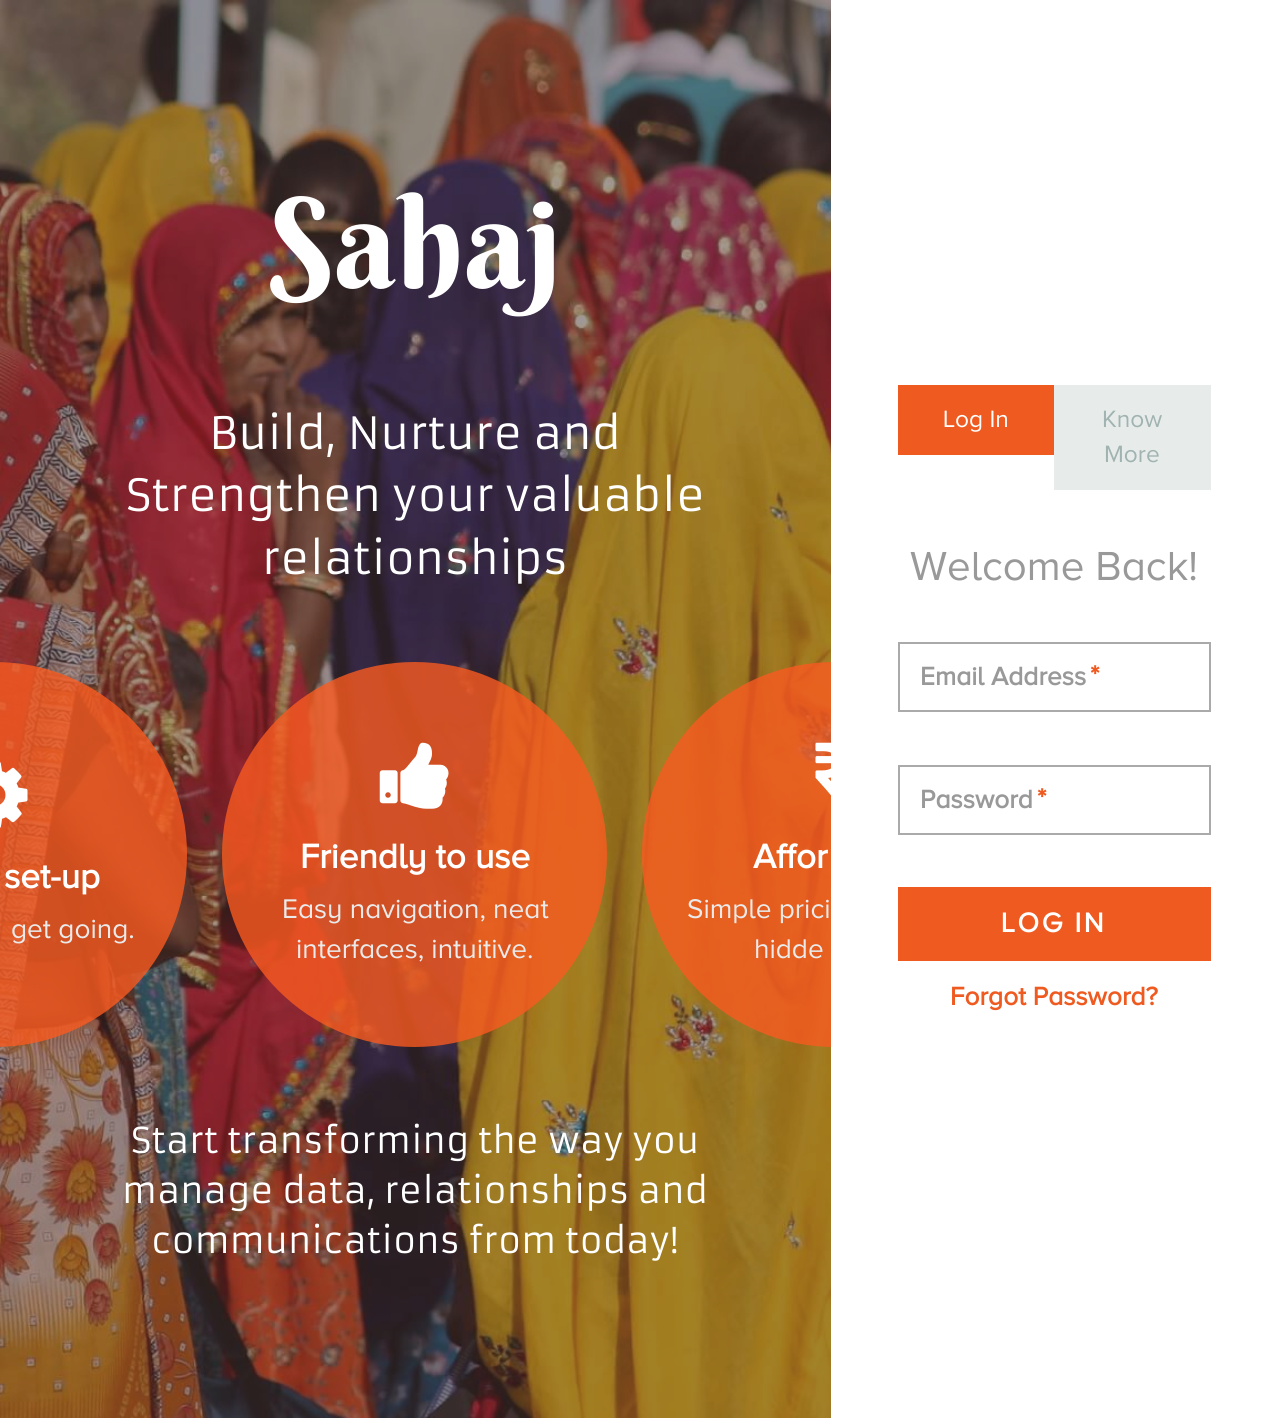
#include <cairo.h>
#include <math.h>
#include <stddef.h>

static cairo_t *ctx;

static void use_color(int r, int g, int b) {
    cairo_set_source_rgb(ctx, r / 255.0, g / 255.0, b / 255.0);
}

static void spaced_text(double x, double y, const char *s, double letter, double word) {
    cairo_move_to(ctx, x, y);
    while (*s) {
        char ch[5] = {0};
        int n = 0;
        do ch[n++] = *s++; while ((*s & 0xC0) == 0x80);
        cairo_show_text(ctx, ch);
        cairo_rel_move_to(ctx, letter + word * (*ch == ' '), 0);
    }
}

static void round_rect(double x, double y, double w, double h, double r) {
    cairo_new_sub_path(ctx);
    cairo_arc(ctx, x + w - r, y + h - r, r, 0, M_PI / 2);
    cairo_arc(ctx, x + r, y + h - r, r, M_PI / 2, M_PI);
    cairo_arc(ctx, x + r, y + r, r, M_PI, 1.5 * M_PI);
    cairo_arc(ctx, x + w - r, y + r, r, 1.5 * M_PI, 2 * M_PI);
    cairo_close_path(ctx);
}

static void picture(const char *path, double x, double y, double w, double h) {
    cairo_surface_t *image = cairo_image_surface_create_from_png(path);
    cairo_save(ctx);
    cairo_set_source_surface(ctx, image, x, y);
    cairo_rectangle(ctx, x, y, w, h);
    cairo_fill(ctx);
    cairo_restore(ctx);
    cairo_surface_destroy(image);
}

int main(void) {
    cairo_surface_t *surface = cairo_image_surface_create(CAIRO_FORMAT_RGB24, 1276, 1418);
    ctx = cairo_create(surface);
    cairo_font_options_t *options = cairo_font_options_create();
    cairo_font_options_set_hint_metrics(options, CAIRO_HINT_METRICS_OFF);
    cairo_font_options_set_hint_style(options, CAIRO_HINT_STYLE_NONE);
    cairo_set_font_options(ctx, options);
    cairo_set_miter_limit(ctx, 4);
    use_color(255, 255, 255);
    cairo_paint(ctx);
    picture("img1.png", 0, 0, 831, 1418);
    cairo_select_font_face(ctx, "Berkshire Swash", CAIRO_FONT_SLANT_NORMAL, CAIRO_FONT_WEIGHT_NORMAL);
    cairo_set_font_size(ctx, 126);
    use_color(255, 255, 255);
    cairo_move_to(ctx, 269, 288);
    cairo_show_text(ctx, "Sahaj");
    cairo_select_font_face(ctx, "Armata", CAIRO_FONT_SLANT_NORMAL, CAIRO_FONT_WEIGHT_NORMAL);
    cairo_set_font_size(ctx, 43.75);
    cairo_move_to(ctx, 209, 449);
    cairo_show_text(ctx, "Build, Nurture and");
    cairo_move_to(ctx, 126, 511);
    cairo_show_text(ctx, "Strengthen your valuable");
    cairo_move_to(ctx, 262, 574);
    cairo_show_text(ctx, "relationships");
    cairo_set_source_rgba(ctx, 0.976, 0.353, 0.125, 0.8);
    round_rect(-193, 662, 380, 385, 192.5);
    cairo_fill(ctx);
    picture("img2.png", 0, 762, 28, 66);
    cairo_select_font_face(ctx, "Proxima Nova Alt", CAIRO_FONT_SLANT_NORMAL, CAIRO_FONT_WEIGHT_BOLD);
    cairo_set_font_size(ctx, 35);
    use_color(255, 255, 255);
    cairo_move_to(ctx, 4, 888);
    cairo_show_text(ctx, "set-up");
    cairo_select_font_face(ctx, "Proxima Nova Alt", CAIRO_FONT_SLANT_NORMAL, CAIRO_FONT_WEIGHT_NORMAL);
    cairo_set_font_size(ctx, 28);
    use_color(234, 234, 234);
    cairo_move_to(ctx, 11, 938);
    cairo_show_text(ctx, "get going.");
    cairo_set_source_rgba(ctx, 0.976, 0.353, 0.125, 0.8);
    cairo_new_path(ctx);
    cairo_arc(ctx, 414.5, 854.5, 192.5, 0, 2 * M_PI);
    cairo_fill(ctx);
    picture("img3.png", 379, 742, 70, 67);
    cairo_select_font_face(ctx, "Proxima Nova Alt", CAIRO_FONT_SLANT_NORMAL, CAIRO_FONT_WEIGHT_BOLD);
    cairo_set_font_size(ctx, 35);
    use_color(255, 255, 255);
    cairo_move_to(ctx, 300, 868);
    cairo_show_text(ctx, "Friendly to use");
    cairo_select_font_face(ctx, "Proxima Nova Alt", CAIRO_FONT_SLANT_NORMAL, CAIRO_FONT_WEIGHT_NORMAL);
    cairo_set_font_size(ctx, 28);
    use_color(234, 234, 234);
    cairo_move_to(ctx, 282, 918);
    cairo_show_text(ctx, "Easy navigation, neat");
    cairo_move_to(ctx, 296, 958);
    cairo_show_text(ctx, "interfaces, intuitive.");
    cairo_set_source_rgba(ctx, 0.976, 0.353, 0.125, 0.8);
    cairo_new_path(ctx);
    cairo_arc(ctx, 834.5, 854.5, 192.5, 0, 2 * M_PI);
    cairo_fill(ctx);
    picture("img4.png", 815, 742, 16, 54);
    cairo_select_font_face(ctx, "Proxima Nova Alt", CAIRO_FONT_SLANT_NORMAL, CAIRO_FONT_WEIGHT_BOLD);
    cairo_set_font_size(ctx, 35);
    use_color(255, 255, 255);
    cairo_move_to(ctx, 753, 868);
    cairo_show_text(ctx, "Affor");
    cairo_select_font_face(ctx, "Proxima Nova Alt", CAIRO_FONT_SLANT_NORMAL, CAIRO_FONT_WEIGHT_NORMAL);
    cairo_set_font_size(ctx, 28);
    use_color(234, 234, 234);
    cairo_move_to(ctx, 687, 918);
    cairo_show_text(ctx, "Simple prici");
    cairo_move_to(ctx, 754, 958);
    cairo_show_text(ctx, "hidde");
    cairo_select_font_face(ctx, "Armata", CAIRO_FONT_SLANT_NORMAL, CAIRO_FONT_WEIGHT_NORMAL);
    cairo_set_font_size(ctx, 35);
    use_color(255, 255, 255);
    cairo_move_to(ctx, 131, 1153);
    cairo_show_text(ctx, "Start transforming the way you");
    cairo_move_to(ctx, 122, 1203);
    cairo_show_text(ctx, "manage data, relationships and");
    cairo_move_to(ctx, 151, 1253);
    cairo_show_text(ctx, "communications from today!");
    cairo_rectangle(ctx, 831, 662, 196, 385);
    cairo_fill(ctx);
    use_color(239, 90, 32);
    cairo_rectangle(ctx, 898, 385, 156, 70);
    cairo_fill(ctx);
    cairo_select_font_face(ctx, "Proxima Nova Alt", CAIRO_FONT_SLANT_NORMAL, CAIRO_FONT_WEIGHT_NORMAL);
    cairo_set_font_size(ctx, 24.5);
    use_color(255, 255, 255);
    cairo_move_to(ctx, 943, 427);
    cairo_show_text(ctx, "Log In");
    use_color(231, 236, 235);
    cairo_rectangle(ctx, 1054, 385, 157, 105);
    cairo_fill(ctx);
    use_color(160, 179, 176);
    cairo_move_to(ctx, 1102, 427);
    cairo_show_text(ctx, "Know");
    cairo_move_to(ctx, 1104, 462);
    cairo_show_text(ctx, "More");
    cairo_set_font_size(ctx, 42);
    use_color(153, 153, 153);
    cairo_move_to(ctx, 910, 580);
    cairo_show_text(ctx, "Welcome Back!");
    cairo_rectangle(ctx, 899, 643, 311, 68);
    use_color(170, 170, 170);
    cairo_stroke(ctx);
    cairo_select_font_face(ctx, "Proxima Nova Alt", CAIRO_FONT_SLANT_NORMAL, CAIRO_FONT_WEIGHT_BOLD);
    cairo_set_font_size(ctx, 26.25);
    use_color(153, 153, 153);
    cairo_move_to(ctx, 920, 685);
    cairo_show_text(ctx, "Email Address");
    cairo_set_font_size(ctx, 28);
    use_color(239, 90, 32);
    cairo_move_to(ctx, 1090, 685);
    cairo_show_text(ctx, "*");
    cairo_rectangle(ctx, 899, 766, 311, 68);
    use_color(170, 170, 170);
    cairo_stroke(ctx);
    cairo_set_font_size(ctx, 26.25);
    use_color(153, 153, 153);
    cairo_move_to(ctx, 920, 808);
    cairo_show_text(ctx, "Password");
    cairo_set_font_size(ctx, 28);
    use_color(239, 90, 32);
    cairo_move_to(ctx, 1037, 808);
    cairo_show_text(ctx, "*");
    cairo_rectangle(ctx, 898, 887, 313, 74);
    cairo_fill(ctx);
    use_color(255, 255, 255);
    spaced_text(1001, 932, "LOG IN", 2.75, 0);
    cairo_set_font_size(ctx, 26.25);
    use_color(239, 90, 32);
    cairo_move_to(ctx, 950, 1005);
    cairo_show_text(ctx, "Forgot Password?");
    cairo_surface_write_to_png(surface, "result.png");
    cairo_font_options_destroy(options);
    cairo_destroy(ctx);
    cairo_surface_destroy(surface);
    return 0;
}
